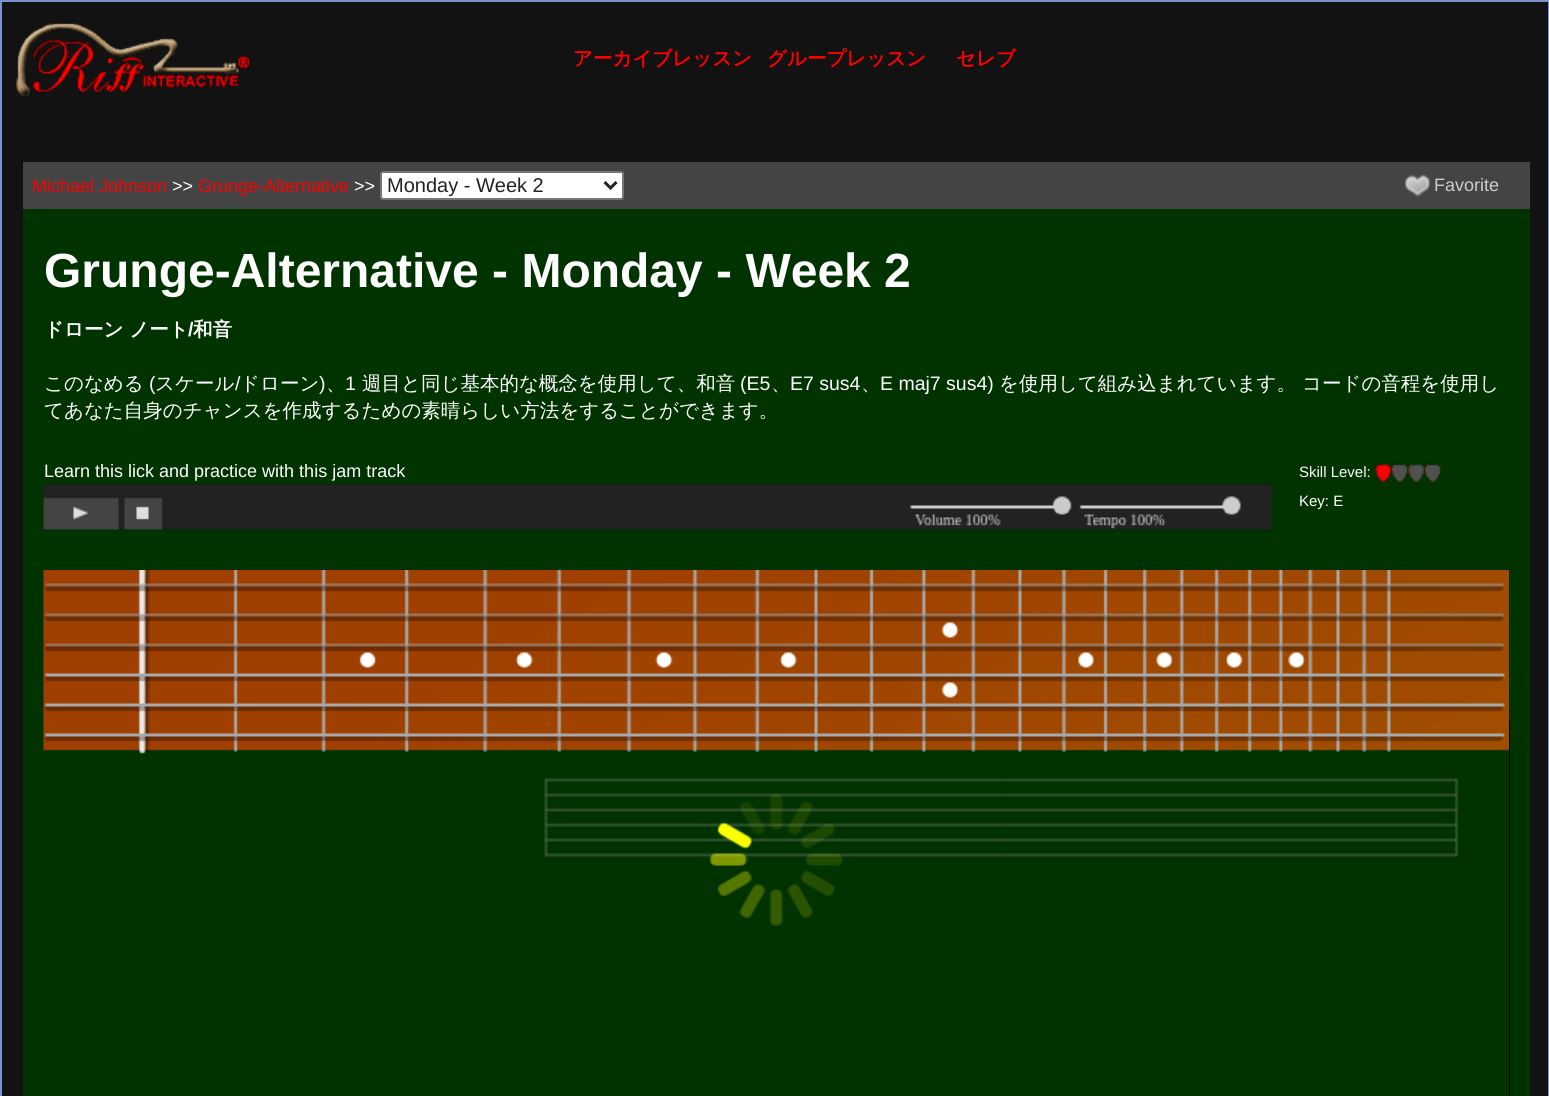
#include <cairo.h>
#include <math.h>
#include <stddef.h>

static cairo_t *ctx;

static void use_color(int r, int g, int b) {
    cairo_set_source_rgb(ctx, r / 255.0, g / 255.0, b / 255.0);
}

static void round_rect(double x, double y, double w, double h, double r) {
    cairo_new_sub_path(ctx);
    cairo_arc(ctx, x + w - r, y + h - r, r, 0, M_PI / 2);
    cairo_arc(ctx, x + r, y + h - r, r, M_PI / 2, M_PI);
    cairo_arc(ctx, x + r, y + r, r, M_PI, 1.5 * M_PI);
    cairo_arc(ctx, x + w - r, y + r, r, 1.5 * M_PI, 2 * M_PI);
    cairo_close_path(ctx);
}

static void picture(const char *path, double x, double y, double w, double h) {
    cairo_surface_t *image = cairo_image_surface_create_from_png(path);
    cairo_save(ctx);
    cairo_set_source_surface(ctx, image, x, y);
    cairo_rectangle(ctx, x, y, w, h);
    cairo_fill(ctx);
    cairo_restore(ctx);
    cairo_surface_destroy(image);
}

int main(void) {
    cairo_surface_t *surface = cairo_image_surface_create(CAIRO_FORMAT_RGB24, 1549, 1096);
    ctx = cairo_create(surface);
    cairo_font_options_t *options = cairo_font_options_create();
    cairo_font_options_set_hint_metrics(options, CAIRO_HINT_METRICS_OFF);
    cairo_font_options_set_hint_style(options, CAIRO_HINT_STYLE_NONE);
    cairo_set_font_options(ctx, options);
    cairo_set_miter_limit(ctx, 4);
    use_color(18, 18, 18);
    cairo_paint(ctx);
    cairo_rectangle(ctx, 1, 1, 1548, 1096);
    use_color(121, 148, 203);
    cairo_stroke(ctx);
    picture("img1.png", 16, 23, 235, 74);
    cairo_select_font_face(ctx, "WenQuanYi Zen Hei", CAIRO_FONT_SLANT_NORMAL, CAIRO_FONT_WEIGHT_BOLD);
    cairo_set_font_size(ctx, 19.5);
    use_color(255, 0, 0);
    cairo_move_to(ctx, 573, 65);
    cairo_show_text(ctx, "アーカイブレッスン");
    cairo_move_to(ctx, 767, 65);
    cairo_show_text(ctx, "グループレッスン");
    cairo_move_to(ctx, 956, 65);
    cairo_show_text(ctx, "セレブ");
    use_color(68, 68, 68);
    cairo_rectangle(ctx, 23, 162, 1507, 47);
    cairo_fill(ctx);
    cairo_select_font_face(ctx, "Liberation Sans", CAIRO_FONT_SLANT_NORMAL, CAIRO_FONT_WEIGHT_NORMAL);
    cairo_set_font_size(ctx, 18);
    use_color(255, 0, 0);
    cairo_move_to(ctx, 32, 192);
    cairo_show_text(ctx, "Michael Johnson");
    use_color(255, 255, 255);
    cairo_move_to(ctx, 172, 192);
    cairo_show_text(ctx, ">>");
    use_color(255, 0, 0);
    cairo_move_to(ctx, 198, 192);
    cairo_show_text(ctx, "Grunge-Alternative");
    use_color(255, 255, 255);
    cairo_move_to(ctx, 354, 192);
    cairo_show_text(ctx, ">>");
    round_rect(381, 172, 242, 27, 2);
    cairo_fill_preserve(ctx);
    use_color(118, 118, 118);
    cairo_stroke(ctx);
    cairo_new_path(ctx);
    cairo_move_to(ctx, 604.5, 182);
    cairo_line_to(ctx, 610.5, 188);
    cairo_line_to(ctx, 616.5, 182);
    use_color(34, 34, 34);
    cairo_set_line_width(ctx, 3);
    cairo_stroke(ctx);
    cairo_set_font_size(ctx, 20);
    cairo_move_to(ctx, 387, 192);
    cairo_show_text(ctx, "Monday - Week 2");
    picture("img2.png", 1405, 175, 25, 22);
    cairo_set_font_size(ctx, 18);
    use_color(204, 204, 204);
    cairo_move_to(ctx, 1434, 191);
    cairo_show_text(ctx, "Favorite");
    use_color(0, 51, 0);
    cairo_rectangle(ctx, 23, 209, 1507, 887);
    cairo_fill(ctx);
    cairo_select_font_face(ctx, "Liberation Sans", CAIRO_FONT_SLANT_NORMAL, CAIRO_FONT_WEIGHT_BOLD);
    cairo_set_font_size(ctx, 48);
    use_color(255, 255, 255);
    cairo_move_to(ctx, 44, 287);
    cairo_show_text(ctx, "Grunge-Alternative - Monday - Week 2");
    cairo_select_font_face(ctx, "WenQuanYi Zen Hei", CAIRO_FONT_SLANT_NORMAL, CAIRO_FONT_WEIGHT_BOLD);
    cairo_set_font_size(ctx, 19.5);
    cairo_move_to(ctx, 44, 336);
    cairo_show_text(ctx, "ドローン ノート");
    cairo_select_font_face(ctx, "Liberation Sans", CAIRO_FONT_SLANT_NORMAL, CAIRO_FONT_WEIGHT_BOLD);
    cairo_move_to(ctx, 188, 336);
    cairo_show_text(ctx, "/");
    cairo_select_font_face(ctx, "WenQuanYi Zen Hei", CAIRO_FONT_SLANT_NORMAL, CAIRO_FONT_WEIGHT_BOLD);
    cairo_move_to(ctx, 193, 336);
    cairo_show_text(ctx, "和音");
    cairo_select_font_face(ctx, "WenQuanYi Zen Hei Medium", CAIRO_FONT_SLANT_NORMAL, CAIRO_FONT_WEIGHT_NORMAL);
    cairo_move_to(ctx, 44, 390);
    cairo_show_text(ctx, "このなめる");
    cairo_select_font_face(ctx, "Liberation Sans", CAIRO_FONT_SLANT_NORMAL, CAIRO_FONT_WEIGHT_NORMAL);
    cairo_move_to(ctx, 149, 390);
    cairo_show_text(ctx, "(");
    cairo_select_font_face(ctx, "WenQuanYi Zen Hei Medium", CAIRO_FONT_SLANT_NORMAL, CAIRO_FONT_WEIGHT_NORMAL);
    cairo_move_to(ctx, 155, 390);
    cairo_show_text(ctx, "スケール");
    cairo_select_font_face(ctx, "Liberation Sans", CAIRO_FONT_SLANT_NORMAL, CAIRO_FONT_WEIGHT_NORMAL);
    cairo_move_to(ctx, 235, 390);
    cairo_show_text(ctx, "/");
    cairo_select_font_face(ctx, "WenQuanYi Zen Hei Medium", CAIRO_FONT_SLANT_NORMAL, CAIRO_FONT_WEIGHT_NORMAL);
    cairo_move_to(ctx, 240, 390);
    cairo_show_text(ctx, "ドローン");
    cairo_select_font_face(ctx, "Liberation Sans", CAIRO_FONT_SLANT_NORMAL, CAIRO_FONT_WEIGHT_NORMAL);
    cairo_move_to(ctx, 319, 390);
    cairo_show_text(ctx, ")");
    cairo_select_font_face(ctx, "WenQuanYi Zen Hei Medium", CAIRO_FONT_SLANT_NORMAL, CAIRO_FONT_WEIGHT_NORMAL);
    cairo_move_to(ctx, 326, 390);
    cairo_show_text(ctx, "、");
    cairo_select_font_face(ctx, "Liberation Sans", CAIRO_FONT_SLANT_NORMAL, CAIRO_FONT_WEIGHT_NORMAL);
    cairo_move_to(ctx, 345, 390);
    cairo_show_text(ctx, "1");
    cairo_select_font_face(ctx, "WenQuanYi Zen Hei Medium", CAIRO_FONT_SLANT_NORMAL, CAIRO_FONT_WEIGHT_NORMAL);
    cairo_move_to(ctx, 362, 390);
    cairo_show_text(ctx, "週目と同じ基本的な概念を使用して、和音");
    cairo_select_font_face(ctx, "Liberation Sans", CAIRO_FONT_SLANT_NORMAL, CAIRO_FONT_WEIGHT_NORMAL);
    cairo_move_to(ctx, 740, 390);
    cairo_show_text(ctx, "(E5");
    cairo_select_font_face(ctx, "WenQuanYi Zen Hei Medium", CAIRO_FONT_SLANT_NORMAL, CAIRO_FONT_WEIGHT_NORMAL);
    cairo_move_to(ctx, 771, 390);
    cairo_show_text(ctx, "、");
    cairo_select_font_face(ctx, "Liberation Sans", CAIRO_FONT_SLANT_NORMAL, CAIRO_FONT_WEIGHT_NORMAL);
    cairo_move_to(ctx, 790, 390);
    cairo_show_text(ctx, "E7 sus4");
    cairo_select_font_face(ctx, "WenQuanYi Zen Hei Medium", CAIRO_FONT_SLANT_NORMAL, CAIRO_FONT_WEIGHT_NORMAL);
    cairo_move_to(ctx, 861, 390);
    cairo_show_text(ctx, "、");
    cairo_select_font_face(ctx, "Liberation Sans", CAIRO_FONT_SLANT_NORMAL, CAIRO_FONT_WEIGHT_NORMAL);
    cairo_move_to(ctx, 880, 390);
    cairo_show_text(ctx, "E maj7 sus4)");
    cairo_select_font_face(ctx, "WenQuanYi Zen Hei Medium", CAIRO_FONT_SLANT_NORMAL, CAIRO_FONT_WEIGHT_NORMAL);
    cairo_move_to(ctx, 999, 390);
    cairo_show_text(ctx, "を使用して組み込まれています。");
    cairo_move_to(ctx, 1302, 390);
    cairo_show_text(ctx, "コードの音程を使用し");
    cairo_move_to(ctx, 44, 417);
    cairo_show_text(ctx, "てあなた自身のチャンスを作成するための素晴らしい方法をすることができます。");
    cairo_select_font_face(ctx, "Liberation Sans", CAIRO_FONT_SLANT_NORMAL, CAIRO_FONT_WEIGHT_NORMAL);
    cairo_set_font_size(ctx, 18);
    cairo_move_to(ctx, 44, 477);
    cairo_show_text(ctx, "Learn this lick and practice with this jam track");
    picture("img3.png", 43, 484, 1229, 46);
    cairo_set_font_size(ctx, 15);
    cairo_move_to(ctx, 1299, 477);
    cairo_show_text(ctx, "Skill Level:");
    picture("img4.png", 1375, 464, 17, 18);
    picture("img5.png", 1392, 463, 16, 19);
    picture("img6.png", 1408, 464, 17, 18);
    picture("img5.png", 1425, 463, 16, 19);
    cairo_move_to(ctx, 1299, 506);
    cairo_show_text(ctx, "Key: E");
    picture("img7.png", 43, 569, 1467, 527);
    cairo_surface_write_to_png(surface, "result.png");
    cairo_font_options_destroy(options);
    cairo_destroy(ctx);
    cairo_surface_destroy(surface);
    return 0;
}
